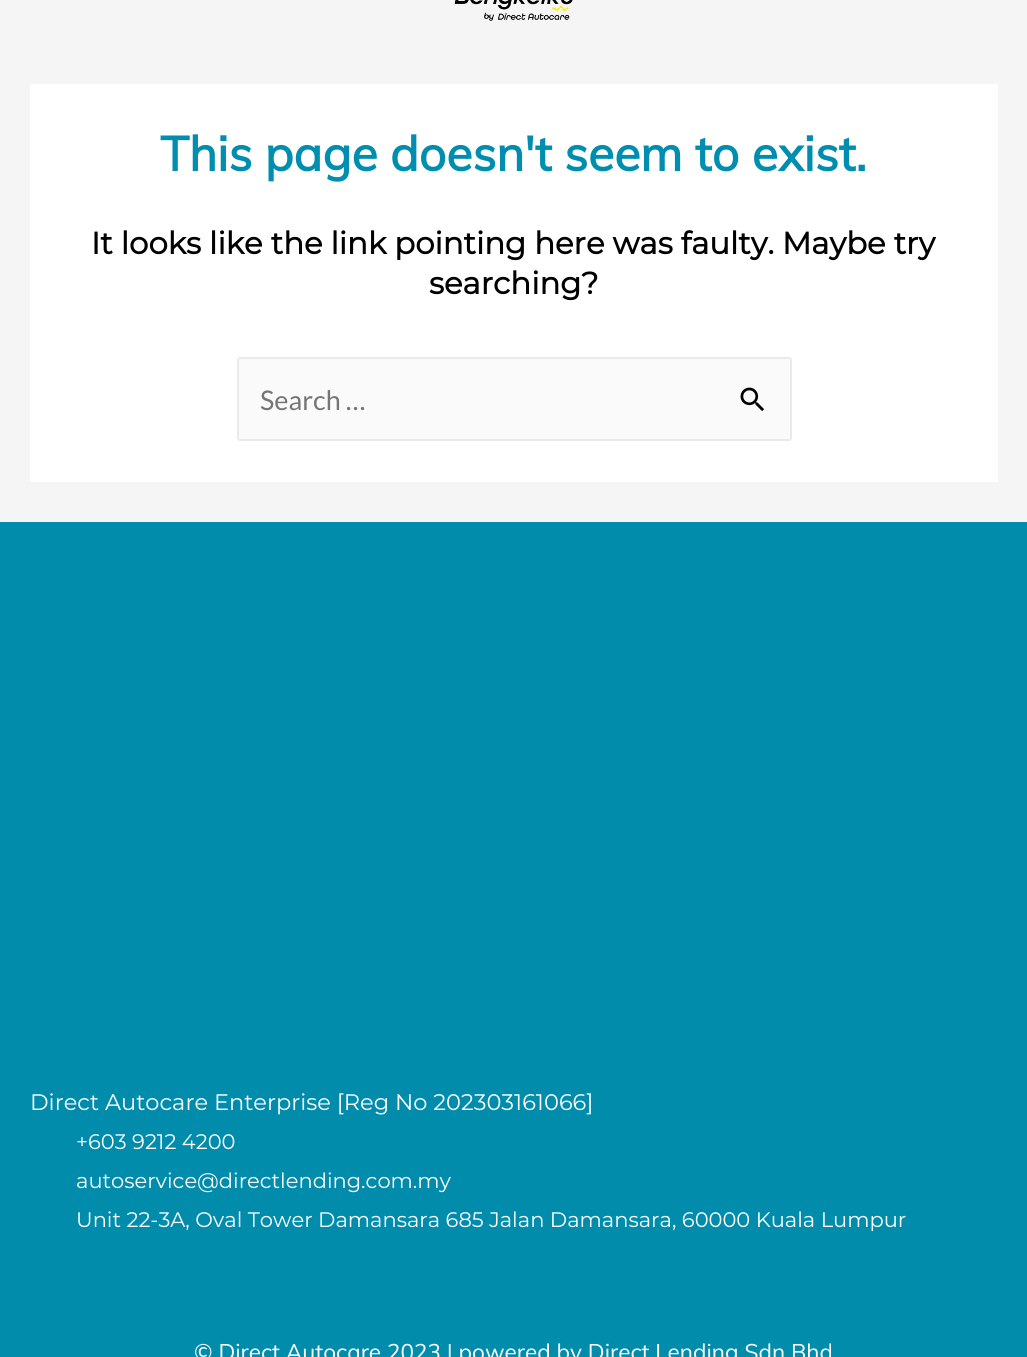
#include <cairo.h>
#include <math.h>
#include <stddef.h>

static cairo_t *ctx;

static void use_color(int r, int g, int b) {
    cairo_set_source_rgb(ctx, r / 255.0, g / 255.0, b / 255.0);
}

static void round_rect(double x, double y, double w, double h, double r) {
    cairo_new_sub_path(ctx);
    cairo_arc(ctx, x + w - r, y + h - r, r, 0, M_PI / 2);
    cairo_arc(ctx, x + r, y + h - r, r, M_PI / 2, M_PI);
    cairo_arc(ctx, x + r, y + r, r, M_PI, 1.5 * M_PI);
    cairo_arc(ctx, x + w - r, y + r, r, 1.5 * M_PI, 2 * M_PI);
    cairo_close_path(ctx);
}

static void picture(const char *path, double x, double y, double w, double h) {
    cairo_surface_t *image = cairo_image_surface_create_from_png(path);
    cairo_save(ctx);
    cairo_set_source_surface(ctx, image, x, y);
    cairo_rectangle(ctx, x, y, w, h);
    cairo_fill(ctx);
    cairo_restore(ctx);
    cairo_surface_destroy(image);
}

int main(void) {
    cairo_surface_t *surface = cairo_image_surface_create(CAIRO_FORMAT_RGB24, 1027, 1357);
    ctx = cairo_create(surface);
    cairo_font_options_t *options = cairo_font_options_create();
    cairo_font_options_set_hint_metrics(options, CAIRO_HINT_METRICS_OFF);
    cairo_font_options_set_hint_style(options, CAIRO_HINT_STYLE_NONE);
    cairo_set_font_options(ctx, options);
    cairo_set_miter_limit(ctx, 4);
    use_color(245, 245, 245);
    cairo_paint(ctx);
    picture("img1.png", 454, 0, 119, 21);
    use_color(255, 255, 255);
    cairo_rectangle(ctx, 30, 84, 968, 398);
    cairo_fill(ctx);
    cairo_select_font_face(ctx, "Muli", CAIRO_FONT_SLANT_NORMAL, CAIRO_FONT_WEIGHT_BOLD);
    cairo_set_font_size(ctx, 48);
    use_color(0, 142, 176);
    cairo_move_to(ctx, 160, 171);
    cairo_show_text(ctx, "This page doesn't seem to exist.");
    cairo_select_font_face(ctx, "Montserrat", CAIRO_FONT_SLANT_NORMAL, CAIRO_FONT_WEIGHT_BOLD);
    cairo_set_font_size(ctx, 30.75);
    use_color(0, 0, 0);
    cairo_move_to(ctx, 91, 254);
    cairo_show_text(ctx, "It looks like the link pointing here was faulty. Maybe try");
    cairo_move_to(ctx, 429, 294);
    cairo_show_text(ctx, "searching?");
    use_color(250, 250, 250);
    round_rect(238, 358, 553, 82, 2);
    cairo_fill_preserve(ctx);
    use_color(234, 234, 234);
    cairo_stroke(ctx);
    cairo_select_font_face(ctx, "Lato", CAIRO_FONT_SLANT_NORMAL, CAIRO_FONT_WEIGHT_NORMAL);
    cairo_set_font_size(ctx, 27);
    use_color(117, 117, 117);
    cairo_move_to(ctx, 260, 410);
    cairo_show_text(ctx, "Search …");
    picture("img2.png", 740, 387, 25, 25);
    use_color(1, 140, 172);
    cairo_rectangle(ctx, 0, 522, 1027, 835);
    cairo_fill(ctx);
    cairo_select_font_face(ctx, "Montserrat Thin", CAIRO_FONT_SLANT_NORMAL, CAIRO_FONT_WEIGHT_NORMAL);
    cairo_set_font_size(ctx, 22.5);
    use_color(255, 255, 255);
    cairo_move_to(ctx, 30, 1110);
    cairo_show_text(ctx, "Direct Autocare Enterprise [Reg No 202303161066]");
    cairo_set_font_size(ctx, 21);
    cairo_move_to(ctx, 76, 1149);
    cairo_show_text(ctx, "+603 9212 4200");
    cairo_move_to(ctx, 76, 1188);
    cairo_show_text(ctx, "autoservice@directlending.com.my");
    cairo_move_to(ctx, 76, 1227);
    cairo_show_text(ctx, "Unit 22-3A, Oval Tower Damansara 685 Jalan Damansara, 60000 Kuala Lumpur");
    cairo_select_font_face(ctx, "Muli", CAIRO_FONT_SLANT_NORMAL, CAIRO_FONT_WEIGHT_NORMAL);
    cairo_set_font_size(ctx, 22.5);
    cairo_move_to(ctx, 194, 1360);
    cairo_show_text(ctx, "© Direct Autocare 2023 | powered by Direct Lending Sdn Bhd");
    cairo_surface_write_to_png(surface, "result.png");
    cairo_font_options_destroy(options);
    cairo_destroy(ctx);
    cairo_surface_destroy(surface);
    return 0;
}
